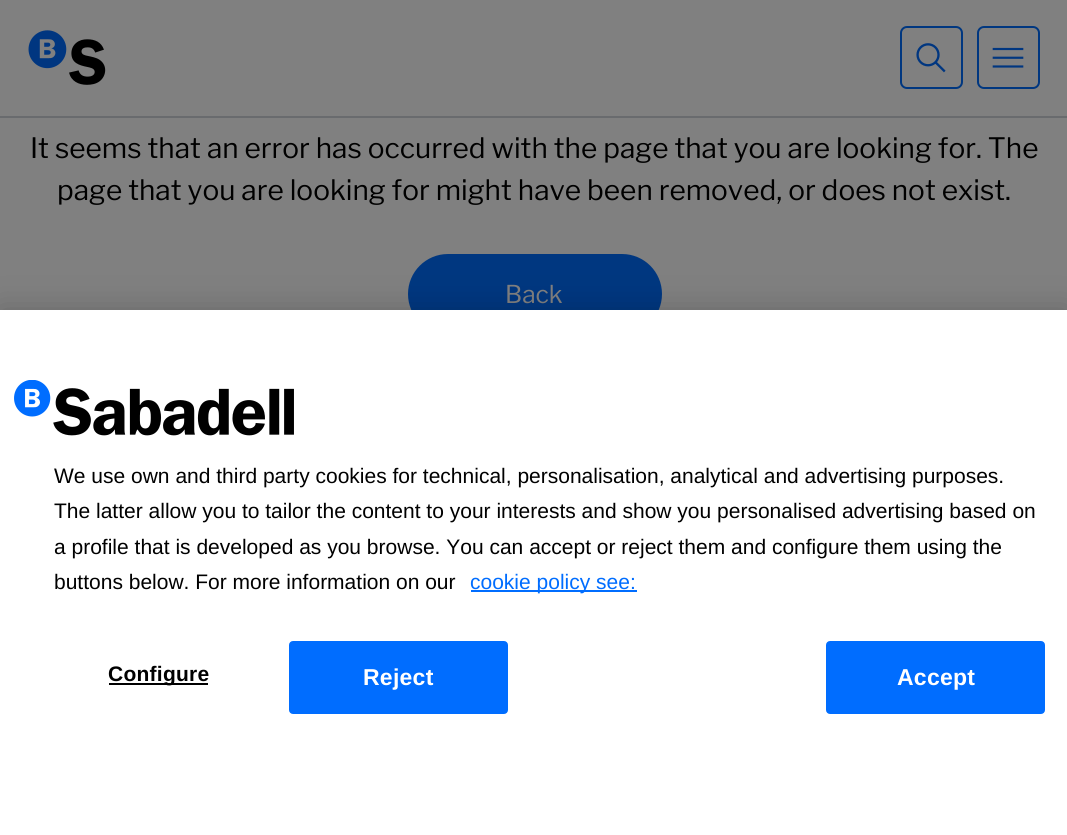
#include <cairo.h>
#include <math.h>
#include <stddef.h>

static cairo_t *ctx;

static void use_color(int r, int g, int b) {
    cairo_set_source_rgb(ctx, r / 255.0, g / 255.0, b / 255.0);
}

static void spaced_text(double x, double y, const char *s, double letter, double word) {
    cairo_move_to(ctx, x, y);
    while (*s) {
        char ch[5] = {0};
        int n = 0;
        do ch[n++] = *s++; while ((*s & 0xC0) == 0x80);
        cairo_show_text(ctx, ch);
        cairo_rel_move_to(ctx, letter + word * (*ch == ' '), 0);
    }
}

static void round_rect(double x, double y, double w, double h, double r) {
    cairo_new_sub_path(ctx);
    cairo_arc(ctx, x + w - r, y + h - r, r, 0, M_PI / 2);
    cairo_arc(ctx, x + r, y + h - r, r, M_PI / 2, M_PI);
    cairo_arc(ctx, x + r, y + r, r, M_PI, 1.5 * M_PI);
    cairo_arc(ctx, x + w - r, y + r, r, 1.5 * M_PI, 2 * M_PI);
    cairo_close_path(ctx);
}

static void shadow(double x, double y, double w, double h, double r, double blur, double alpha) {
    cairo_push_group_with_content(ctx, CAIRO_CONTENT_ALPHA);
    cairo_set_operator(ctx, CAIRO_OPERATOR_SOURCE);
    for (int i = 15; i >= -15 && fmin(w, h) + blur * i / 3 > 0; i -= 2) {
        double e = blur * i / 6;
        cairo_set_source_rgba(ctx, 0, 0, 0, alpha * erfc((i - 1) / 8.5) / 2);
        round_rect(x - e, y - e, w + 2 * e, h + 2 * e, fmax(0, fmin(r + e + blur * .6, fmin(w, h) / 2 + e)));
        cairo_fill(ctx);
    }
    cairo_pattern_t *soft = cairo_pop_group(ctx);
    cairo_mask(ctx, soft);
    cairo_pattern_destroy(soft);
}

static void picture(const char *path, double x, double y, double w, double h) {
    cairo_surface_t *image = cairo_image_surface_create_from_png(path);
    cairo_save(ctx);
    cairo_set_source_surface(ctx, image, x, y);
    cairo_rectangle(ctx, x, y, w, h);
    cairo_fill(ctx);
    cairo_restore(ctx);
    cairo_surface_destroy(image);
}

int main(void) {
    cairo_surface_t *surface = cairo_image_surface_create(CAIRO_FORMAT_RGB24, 1067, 835);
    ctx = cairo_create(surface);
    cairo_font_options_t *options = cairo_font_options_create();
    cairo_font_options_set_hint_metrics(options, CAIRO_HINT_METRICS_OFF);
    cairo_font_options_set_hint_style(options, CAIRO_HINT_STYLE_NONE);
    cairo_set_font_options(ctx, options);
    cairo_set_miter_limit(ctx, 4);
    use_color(128, 128, 128);
    cairo_paint(ctx);
    use_color(105, 107, 110);
    cairo_rectangle(ctx, 0, 116, 1067, 2);
    cairo_fill(ctx);
    picture("img1.png", 28, 30, 78, 55);
    round_rect(901, 27, 61, 61, 6);
    use_color(0, 55, 128);
    cairo_stroke(ctx);
    picture("img2.png", 916, 43, 30, 30);
    round_rect(978, 27, 61, 61, 6);
    cairo_stroke(ctx);
    picture("img3.png", 992, 47, 32, 21);
    cairo_select_font_face(ctx, "Libre Franklin", CAIRO_FONT_SLANT_NORMAL, CAIRO_FONT_WEIGHT_NORMAL);
    cairo_set_font_size(ctx, 28);
    use_color(0, 0, 0);
    cairo_move_to(ctx, 30, 158);
    cairo_show_text(ctx, "It seems that an error has occurred with the page that you are looking for. The");
    cairo_move_to(ctx, 57, 200);
    cairo_show_text(ctx, "page that you are looking for might have been removed, or does not exist.");
    use_color(0, 55, 128);
    round_rect(408, 254, 254, 80, 40);
    cairo_fill(ctx);
    cairo_set_font_size(ctx, 24.5);
    use_color(128, 128, 128);
    cairo_move_to(ctx, 505, 303);
    cairo_show_text(ctx, "Back");
    use_color(0, 0, 0);
    shadow(0, 310, 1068, 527, 0, 16, 0.2);
    use_color(255, 255, 255);
    cairo_rectangle(ctx, 0, 310, 1067, 525);
    cairo_fill(ctx);
    picture("img4.png", 14, 380, 280, 56);
    cairo_select_font_face(ctx, "Liberation Sans", CAIRO_FONT_SLANT_NORMAL, CAIRO_FONT_WEIGHT_NORMAL);
    cairo_set_font_size(ctx, 21);
    use_color(0, 0, 0);
    cairo_move_to(ctx, 54, 483);
    cairo_show_text(ctx, "We use own and third party cookies for technical, personalisation, analytical and advertising purposes.");
    cairo_move_to(ctx, 54, 518);
    cairo_show_text(ctx, "The latter allow you to tailor the content to your interests and show you personalised advertising based on");
    cairo_move_to(ctx, 54, 554);
    cairo_show_text(ctx, "a profile that is developed as you browse. You can accept or reject them and configure them using the");
    cairo_move_to(ctx, 54, 589);
    cairo_show_text(ctx, "buttons below. For more information on our");
    use_color(0, 109, 255);
    cairo_rectangle(ctx, 471, 590, 166, 2);
    cairo_fill(ctx);
    cairo_move_to(ctx, 470, 589);
    cairo_show_text(ctx, "cookie policy see:");
    use_color(0, 0, 0);
    cairo_rectangle(ctx, 109, 683, 99, 2);
    cairo_fill(ctx);
    cairo_select_font_face(ctx, "Liberation Sans", CAIRO_FONT_SLANT_NORMAL, CAIRO_FONT_WEIGHT_BOLD);
    spaced_text(108, 681, "Configure", 0.25, 0);
    use_color(0, 109, 255);
    round_rect(290, 642, 217, 71, 3);
    cairo_fill_preserve(ctx);
    cairo_stroke(ctx);
    cairo_set_font_size(ctx, 23);
    use_color(255, 255, 255);
    spaced_text(363, 685, "Reject", 0.25, 0);
    use_color(0, 109, 255);
    round_rect(827, 642, 217, 71, 3);
    cairo_fill_preserve(ctx);
    cairo_stroke(ctx);
    use_color(255, 255, 255);
    spaced_text(897, 685, "Accept", 0.25, 0);
    cairo_surface_write_to_png(surface, "result.png");
    cairo_font_options_destroy(options);
    cairo_destroy(ctx);
    cairo_surface_destroy(surface);
    return 0;
}
